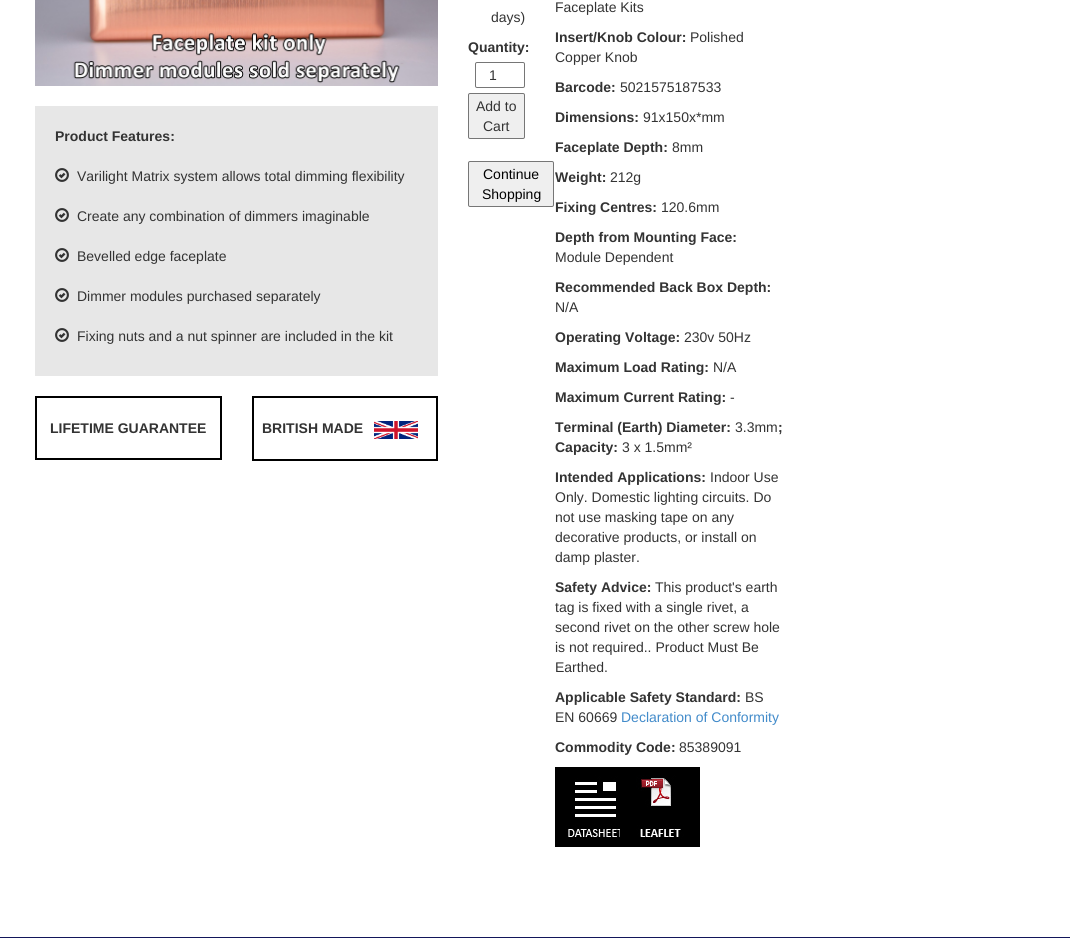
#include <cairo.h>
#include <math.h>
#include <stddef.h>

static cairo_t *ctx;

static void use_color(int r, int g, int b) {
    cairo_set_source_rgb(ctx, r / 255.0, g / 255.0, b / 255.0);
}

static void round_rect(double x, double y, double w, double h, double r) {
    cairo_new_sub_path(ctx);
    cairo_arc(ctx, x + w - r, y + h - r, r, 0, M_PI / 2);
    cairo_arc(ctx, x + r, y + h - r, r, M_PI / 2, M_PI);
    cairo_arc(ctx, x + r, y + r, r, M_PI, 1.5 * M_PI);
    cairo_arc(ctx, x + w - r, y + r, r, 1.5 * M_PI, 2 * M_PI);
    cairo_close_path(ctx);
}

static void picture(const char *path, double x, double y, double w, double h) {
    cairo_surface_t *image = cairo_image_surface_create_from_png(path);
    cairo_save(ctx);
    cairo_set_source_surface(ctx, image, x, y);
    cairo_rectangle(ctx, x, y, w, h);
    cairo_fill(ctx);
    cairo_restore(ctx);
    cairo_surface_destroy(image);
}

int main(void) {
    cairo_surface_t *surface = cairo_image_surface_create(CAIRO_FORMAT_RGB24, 1070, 938);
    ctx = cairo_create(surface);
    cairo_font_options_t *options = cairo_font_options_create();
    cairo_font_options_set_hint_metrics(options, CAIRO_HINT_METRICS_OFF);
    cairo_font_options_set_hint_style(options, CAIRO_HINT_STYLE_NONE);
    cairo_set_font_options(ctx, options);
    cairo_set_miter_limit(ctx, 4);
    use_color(255, 255, 255);
    cairo_paint(ctx);
    cairo_select_font_face(ctx, "Liberation Sans", CAIRO_FONT_SLANT_NORMAL, CAIRO_FONT_WEIGHT_NORMAL);
    cairo_set_font_size(ctx, 14);
    use_color(51, 51, 51);
    cairo_move_to(ctx, 491, 22);
    cairo_show_text(ctx, "days)");
    cairo_select_font_face(ctx, "Liberation Sans", CAIRO_FONT_SLANT_NORMAL, CAIRO_FONT_WEIGHT_BOLD);
    cairo_move_to(ctx, 468, 52);
    cairo_show_text(ctx, "Quantity:");
    round_rect(475.5, 62.5, 49, 25, 1.5);
    use_color(118, 118, 118);
    cairo_set_line_width(ctx, 1);
    cairo_stroke(ctx);
    cairo_select_font_face(ctx, "Liberation Sans", CAIRO_FONT_SLANT_NORMAL, CAIRO_FONT_WEIGHT_NORMAL);
    use_color(51, 51, 51);
    cairo_move_to(ctx, 489, 80);
    cairo_show_text(ctx, "1");
    use_color(239, 239, 239);
    round_rect(468.5, 93.5, 56, 45, 1.5);
    cairo_fill_preserve(ctx);
    use_color(118, 118, 118);
    cairo_stroke(ctx);
    use_color(51, 51, 51);
    cairo_move_to(ctx, 476, 111);
    cairo_show_text(ctx, "Add to");
    cairo_move_to(ctx, 483, 131);
    cairo_show_text(ctx, "Cart");
    use_color(239, 239, 239);
    round_rect(468.5, 161.5, 85, 45, 1.5);
    cairo_fill_preserve(ctx);
    use_color(118, 118, 118);
    cairo_stroke(ctx);
    use_color(0, 0, 0);
    cairo_move_to(ctx, 483, 179);
    cairo_show_text(ctx, "Continue");
    cairo_move_to(ctx, 482, 199);
    cairo_show_text(ctx, "Shopping");
    use_color(51, 51, 51);
    cairo_move_to(ctx, 555, 12);
    cairo_show_text(ctx, "Faceplate Kits");
    cairo_select_font_face(ctx, "Liberation Sans", CAIRO_FONT_SLANT_NORMAL, CAIRO_FONT_WEIGHT_BOLD);
    cairo_move_to(ctx, 555, 42);
    cairo_show_text(ctx, "Insert/Knob Colour:");
    cairo_select_font_face(ctx, "Liberation Sans", CAIRO_FONT_SLANT_NORMAL, CAIRO_FONT_WEIGHT_NORMAL);
    cairo_move_to(ctx, 690, 42);
    cairo_show_text(ctx, "Polished");
    cairo_move_to(ctx, 555, 62);
    cairo_show_text(ctx, "Copper Knob");
    cairo_select_font_face(ctx, "Liberation Sans", CAIRO_FONT_SLANT_NORMAL, CAIRO_FONT_WEIGHT_BOLD);
    cairo_move_to(ctx, 555, 92);
    cairo_show_text(ctx, "Barcode:");
    cairo_select_font_face(ctx, "Liberation Sans", CAIRO_FONT_SLANT_NORMAL, CAIRO_FONT_WEIGHT_NORMAL);
    cairo_move_to(ctx, 620, 92);
    cairo_show_text(ctx, "5021575187533");
    cairo_select_font_face(ctx, "Liberation Sans", CAIRO_FONT_SLANT_NORMAL, CAIRO_FONT_WEIGHT_BOLD);
    cairo_move_to(ctx, 555, 122);
    cairo_show_text(ctx, "Dimensions:");
    cairo_select_font_face(ctx, "Liberation Sans", CAIRO_FONT_SLANT_NORMAL, CAIRO_FONT_WEIGHT_NORMAL);
    cairo_move_to(ctx, 643, 122);
    cairo_show_text(ctx, "91x150x*mm");
    cairo_select_font_face(ctx, "Liberation Sans", CAIRO_FONT_SLANT_NORMAL, CAIRO_FONT_WEIGHT_BOLD);
    cairo_move_to(ctx, 555, 152);
    cairo_show_text(ctx, "Faceplate Depth:");
    cairo_select_font_face(ctx, "Liberation Sans", CAIRO_FONT_SLANT_NORMAL, CAIRO_FONT_WEIGHT_NORMAL);
    cairo_move_to(ctx, 672, 152);
    cairo_show_text(ctx, "8mm");
    cairo_select_font_face(ctx, "Liberation Sans", CAIRO_FONT_SLANT_NORMAL, CAIRO_FONT_WEIGHT_BOLD);
    cairo_move_to(ctx, 555, 182);
    cairo_show_text(ctx, "Weight:");
    cairo_select_font_face(ctx, "Liberation Sans", CAIRO_FONT_SLANT_NORMAL, CAIRO_FONT_WEIGHT_NORMAL);
    cairo_move_to(ctx, 610, 182);
    cairo_show_text(ctx, "212g");
    cairo_select_font_face(ctx, "Liberation Sans", CAIRO_FONT_SLANT_NORMAL, CAIRO_FONT_WEIGHT_BOLD);
    cairo_move_to(ctx, 555, 212);
    cairo_show_text(ctx, "Fixing Centres:");
    cairo_select_font_face(ctx, "Liberation Sans", CAIRO_FONT_SLANT_NORMAL, CAIRO_FONT_WEIGHT_NORMAL);
    cairo_move_to(ctx, 661, 212);
    cairo_show_text(ctx, "120.6mm");
    cairo_select_font_face(ctx, "Liberation Sans", CAIRO_FONT_SLANT_NORMAL, CAIRO_FONT_WEIGHT_BOLD);
    cairo_move_to(ctx, 555, 242);
    cairo_show_text(ctx, "Depth from Mounting Face:");
    cairo_select_font_face(ctx, "Liberation Sans", CAIRO_FONT_SLANT_NORMAL, CAIRO_FONT_WEIGHT_NORMAL);
    cairo_move_to(ctx, 555, 262);
    cairo_show_text(ctx, "Module Dependent");
    cairo_select_font_face(ctx, "Liberation Sans", CAIRO_FONT_SLANT_NORMAL, CAIRO_FONT_WEIGHT_BOLD);
    cairo_move_to(ctx, 555, 292);
    cairo_show_text(ctx, "Recommended Back Box Depth:");
    cairo_select_font_face(ctx, "Liberation Sans", CAIRO_FONT_SLANT_NORMAL, CAIRO_FONT_WEIGHT_NORMAL);
    cairo_move_to(ctx, 555, 312);
    cairo_show_text(ctx, "N/A");
    cairo_select_font_face(ctx, "Liberation Sans", CAIRO_FONT_SLANT_NORMAL, CAIRO_FONT_WEIGHT_BOLD);
    cairo_move_to(ctx, 555, 342);
    cairo_show_text(ctx, "Operating Voltage:");
    cairo_select_font_face(ctx, "Liberation Sans", CAIRO_FONT_SLANT_NORMAL, CAIRO_FONT_WEIGHT_NORMAL);
    cairo_move_to(ctx, 684, 342);
    cairo_show_text(ctx, "230v 50Hz");
    cairo_select_font_face(ctx, "Liberation Sans", CAIRO_FONT_SLANT_NORMAL, CAIRO_FONT_WEIGHT_BOLD);
    cairo_move_to(ctx, 555, 372);
    cairo_show_text(ctx, "Maximum Load Rating:");
    cairo_select_font_face(ctx, "Liberation Sans", CAIRO_FONT_SLANT_NORMAL, CAIRO_FONT_WEIGHT_NORMAL);
    cairo_move_to(ctx, 713, 372);
    cairo_show_text(ctx, "N/A");
    cairo_select_font_face(ctx, "Liberation Sans", CAIRO_FONT_SLANT_NORMAL, CAIRO_FONT_WEIGHT_BOLD);
    cairo_move_to(ctx, 555, 402);
    cairo_show_text(ctx, "Maximum Current Rating:");
    cairo_select_font_face(ctx, "Liberation Sans", CAIRO_FONT_SLANT_NORMAL, CAIRO_FONT_WEIGHT_NORMAL);
    cairo_move_to(ctx, 730, 402);
    cairo_show_text(ctx, "-");
    cairo_select_font_face(ctx, "Liberation Sans", CAIRO_FONT_SLANT_NORMAL, CAIRO_FONT_WEIGHT_BOLD);
    cairo_move_to(ctx, 555, 432);
    cairo_show_text(ctx, "Terminal (Earth) Diameter:");
    cairo_select_font_face(ctx, "Liberation Sans", CAIRO_FONT_SLANT_NORMAL, CAIRO_FONT_WEIGHT_NORMAL);
    cairo_move_to(ctx, 735, 432);
    cairo_show_text(ctx, "3.3mm");
    cairo_select_font_face(ctx, "Liberation Sans", CAIRO_FONT_SLANT_NORMAL, CAIRO_FONT_WEIGHT_BOLD);
    cairo_move_to(ctx, 778, 432);
    cairo_show_text(ctx, ";");
    cairo_move_to(ctx, 555, 452);
    cairo_show_text(ctx, "Capacity:");
    cairo_select_font_face(ctx, "Liberation Sans", CAIRO_FONT_SLANT_NORMAL, CAIRO_FONT_WEIGHT_NORMAL);
    cairo_move_to(ctx, 622, 452);
    cairo_show_text(ctx, "3 x 1.5mm²");
    cairo_select_font_face(ctx, "Liberation Sans", CAIRO_FONT_SLANT_NORMAL, CAIRO_FONT_WEIGHT_BOLD);
    cairo_move_to(ctx, 555, 482);
    cairo_show_text(ctx, "Intended Applications:");
    cairo_select_font_face(ctx, "Liberation Sans", CAIRO_FONT_SLANT_NORMAL, CAIRO_FONT_WEIGHT_NORMAL);
    cairo_move_to(ctx, 710, 482);
    cairo_show_text(ctx, "Indoor Use");
    cairo_move_to(ctx, 555, 502);
    cairo_show_text(ctx, "Only. Domestic lighting circuits. Do");
    cairo_move_to(ctx, 555, 522);
    cairo_show_text(ctx, "not use masking tape on any");
    cairo_move_to(ctx, 555, 542);
    cairo_show_text(ctx, "decorative products, or install on");
    cairo_move_to(ctx, 555, 562);
    cairo_show_text(ctx, "damp plaster.");
    cairo_select_font_face(ctx, "Liberation Sans", CAIRO_FONT_SLANT_NORMAL, CAIRO_FONT_WEIGHT_BOLD);
    cairo_move_to(ctx, 555, 592);
    cairo_show_text(ctx, "Safety Advice:");
    cairo_select_font_face(ctx, "Liberation Sans", CAIRO_FONT_SLANT_NORMAL, CAIRO_FONT_WEIGHT_NORMAL);
    cairo_move_to(ctx, 655, 592);
    cairo_show_text(ctx, "This product's earth");
    cairo_move_to(ctx, 555, 612);
    cairo_show_text(ctx, "tag is fixed with a single rivet, a");
    cairo_move_to(ctx, 555, 632);
    cairo_show_text(ctx, "second rivet on the other screw hole");
    cairo_move_to(ctx, 555, 652);
    cairo_show_text(ctx, "is not required.. Product Must Be");
    cairo_move_to(ctx, 555, 672);
    cairo_show_text(ctx, "Earthed.");
    cairo_select_font_face(ctx, "Liberation Sans", CAIRO_FONT_SLANT_NORMAL, CAIRO_FONT_WEIGHT_BOLD);
    cairo_move_to(ctx, 555, 702);
    cairo_show_text(ctx, "Applicable Safety Standard:");
    cairo_select_font_face(ctx, "Liberation Sans", CAIRO_FONT_SLANT_NORMAL, CAIRO_FONT_WEIGHT_NORMAL);
    cairo_move_to(ctx, 745, 702);
    cairo_show_text(ctx, "BS");
    cairo_move_to(ctx, 555, 722);
    cairo_show_text(ctx, "EN 60669");
    use_color(66, 139, 202);
    cairo_move_to(ctx, 621, 722);
    cairo_show_text(ctx, "Declaration of Conformity");
    cairo_select_font_face(ctx, "Liberation Sans", CAIRO_FONT_SLANT_NORMAL, CAIRO_FONT_WEIGHT_BOLD);
    use_color(51, 51, 51);
    cairo_move_to(ctx, 555, 752);
    cairo_show_text(ctx, "Commodity Code:");
    cairo_select_font_face(ctx, "Liberation Sans", CAIRO_FONT_SLANT_NORMAL, CAIRO_FONT_WEIGHT_NORMAL);
    cairo_move_to(ctx, 679, 752);
    cairo_show_text(ctx, "85389091");
    picture("img1.png", 555, 767, 65, 80);
    picture("img2.png", 620, 767, 80, 80);
    picture("img3.png", 35, 0, 403, 86);
    use_color(231, 231, 231);
    cairo_rectangle(ctx, 35, 106, 403, 270);
    cairo_fill(ctx);
    cairo_select_font_face(ctx, "Liberation Sans", CAIRO_FONT_SLANT_NORMAL, CAIRO_FONT_WEIGHT_BOLD);
    use_color(51, 51, 51);
    cairo_move_to(ctx, 55, 141);
    cairo_show_text(ctx, "Product Features:");
    picture("img4.png", 55, 168, 14, 14);
    cairo_select_font_face(ctx, "Liberation Sans", CAIRO_FONT_SLANT_NORMAL, CAIRO_FONT_WEIGHT_NORMAL);
    cairo_move_to(ctx, 77, 181);
    cairo_show_text(ctx, "Varilight Matrix system allows total dimming flexibility");
    picture("img4.png", 55, 208, 14, 14);
    cairo_move_to(ctx, 77, 221);
    cairo_show_text(ctx, "Create any combination of dimmers imaginable");
    picture("img4.png", 55, 248, 14, 14);
    cairo_move_to(ctx, 77, 261);
    cairo_show_text(ctx, "Bevelled edge faceplate");
    picture("img4.png", 55, 288, 14, 14);
    cairo_move_to(ctx, 77, 301);
    cairo_show_text(ctx, "Dimmer modules purchased separately");
    picture("img4.png", 55, 328, 14, 14);
    cairo_move_to(ctx, 77, 341);
    cairo_show_text(ctx, "Fixing nuts and a nut spinner are included in the kit");
    cairo_rectangle(ctx, 36, 397, 185, 62);
    use_color(0, 0, 0);
    cairo_set_line_width(ctx, 2);
    cairo_stroke(ctx);
    cairo_select_font_face(ctx, "Liberation Sans", CAIRO_FONT_SLANT_NORMAL, CAIRO_FONT_WEIGHT_BOLD);
    use_color(51, 51, 51);
    cairo_move_to(ctx, 50, 433);
    cairo_show_text(ctx, "LIFETIME GUARANTEE");
    cairo_rectangle(ctx, 253, 397, 184, 63);
    use_color(0, 0, 0);
    cairo_stroke(ctx);
    use_color(51, 51, 51);
    cairo_move_to(ctx, 262, 433);
    cairo_show_text(ctx, "BRITISH MADE");
    picture("img5.png", 374, 421, 44, 18);
    use_color(18, 22, 90);
    cairo_rectangle(ctx, 0, 937, 1070, 1);
    cairo_fill(ctx);
    cairo_surface_write_to_png(surface, "result.png");
    cairo_font_options_destroy(options);
    cairo_destroy(ctx);
    cairo_surface_destroy(surface);
    return 0;
}
